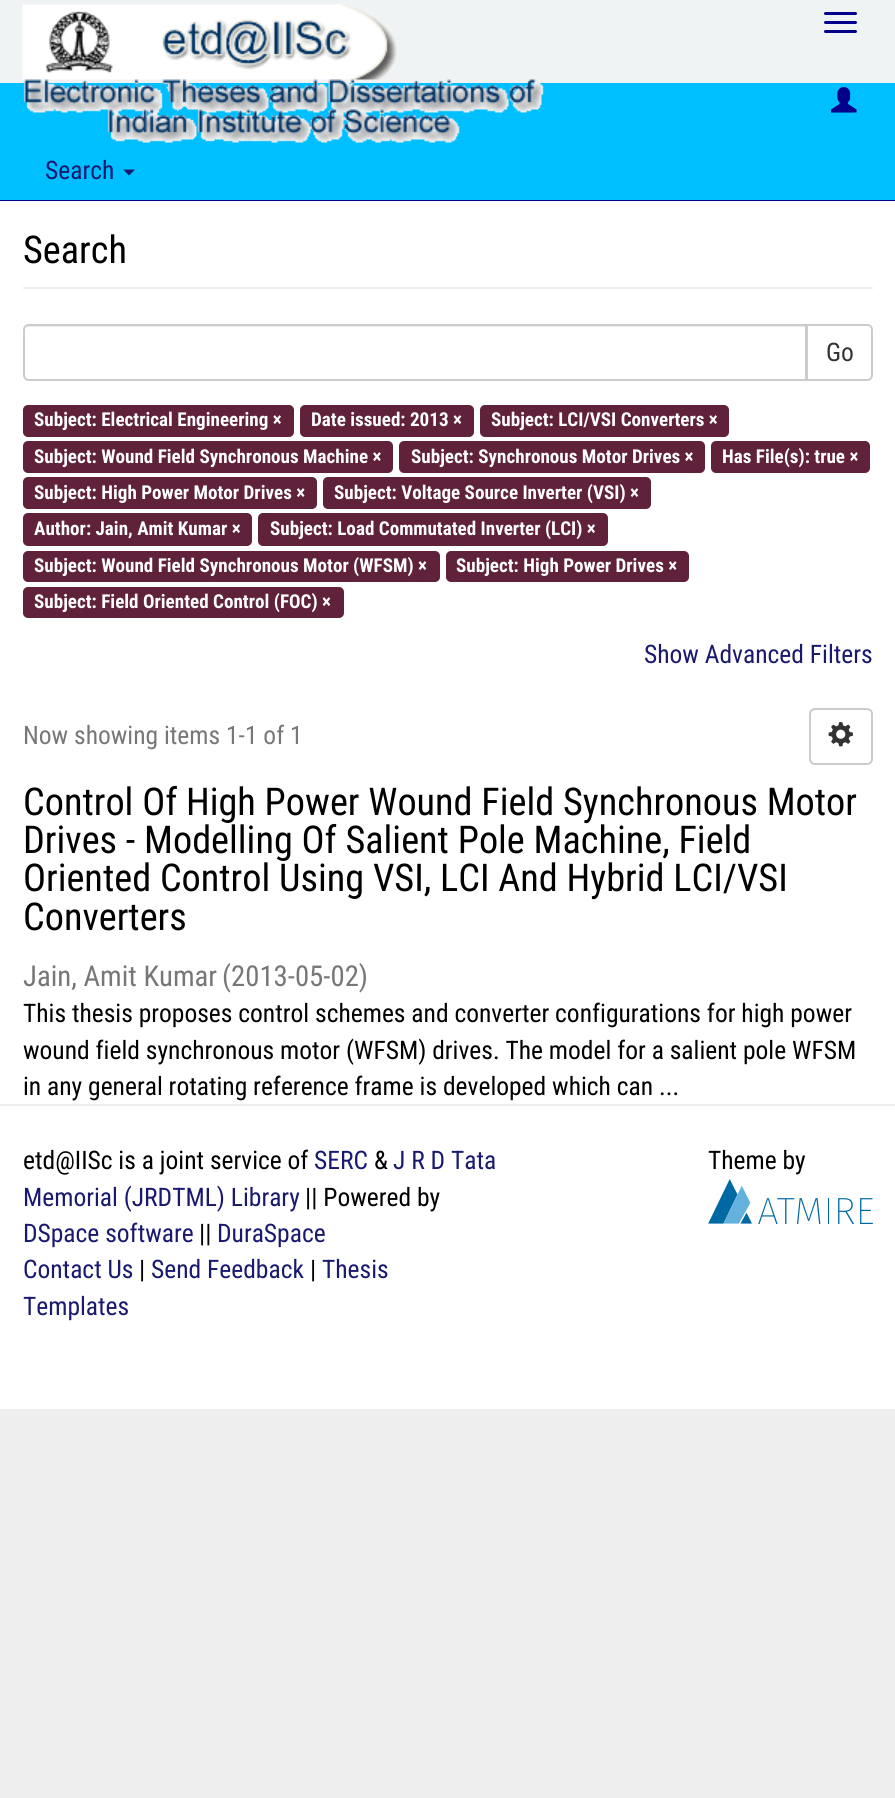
#include <cairo.h>
#include <math.h>
#include <stddef.h>

static cairo_t *ctx;

static void use_color(int r, int g, int b) {
    cairo_set_source_rgb(ctx, r / 255.0, g / 255.0, b / 255.0);
}

static void round_rect(double x, double y, double w, double h, double r) {
    cairo_new_sub_path(ctx);
    cairo_arc(ctx, x + w - r, y + h - r, r, 0, M_PI / 2);
    cairo_arc(ctx, x + r, y + h - r, r, M_PI / 2, M_PI);
    cairo_arc(ctx, x + r, y + r, r, M_PI, 1.5 * M_PI);
    cairo_arc(ctx, x + w - r, y + r, r, 1.5 * M_PI, 2 * M_PI);
    cairo_close_path(ctx);
}

static void picture(const char *path, double x, double y, double w, double h) {
    cairo_surface_t *image = cairo_image_surface_create_from_png(path);
    cairo_save(ctx);
    cairo_set_source_surface(ctx, image, x, y);
    cairo_rectangle(ctx, x, y, w, h);
    cairo_fill(ctx);
    cairo_restore(ctx);
    cairo_surface_destroy(image);
}

int main(void) {
    cairo_surface_t *surface = cairo_image_surface_create(CAIRO_FORMAT_RGB24, 895, 1798);
    ctx = cairo_create(surface);
    cairo_font_options_t *options = cairo_font_options_create();
    cairo_font_options_set_hint_metrics(options, CAIRO_HINT_METRICS_OFF);
    cairo_font_options_set_hint_style(options, CAIRO_HINT_STYLE_NONE);
    cairo_set_font_options(ctx, options);
    cairo_set_miter_limit(ctx, 4);
    use_color(238, 238, 238);
    cairo_paint(ctx);
    use_color(240, 243, 244);
    cairo_rectangle(ctx, 0, 0, 895, 83);
    cairo_fill(ctx);
    picture("img1.png", 22, 4, 375, 76);
    use_color(0, 0, 139);
    round_rect(824, 12, 33, 3, 1.5);
    cairo_fill(ctx);
    round_rect(824, 21, 33, 3, 1.5);
    cairo_fill(ctx);
    round_rect(824, 30, 33, 3, 1.5);
    cairo_fill(ctx);
    use_color(0, 191, 255);
    cairo_rectangle(ctx, 0, 83, 895, 117);
    cairo_fill(ctx);
    picture("img2.png", 23, 79, 521, 64);
    picture("img3.png", 831, 87, 26, 26);
    use_color(0, 0, 139);
    cairo_rectangle(ctx, 0, 200, 895, 1);
    cairo_fill(ctx);
    cairo_select_font_face(ctx, "Roboto Condensed", CAIRO_FONT_SLANT_NORMAL, CAIRO_FONT_WEIGHT_NORMAL);
    cairo_set_font_size(ctx, 25.5);
    use_color(25, 25, 112);
    cairo_move_to(ctx, 45, 179);
    cairo_show_text(ctx, "Search");
    cairo_new_path(ctx);
    cairo_move_to(ctx, 123, 169.5);
    cairo_line_to(ctx, 135, 169.5);
    cairo_line_to(ctx, 129, 175.5);
    cairo_close_path(ctx);
    cairo_fill(ctx);
    use_color(255, 255, 255);
    cairo_rectangle(ctx, 0, 201, 895, 1208);
    cairo_fill(ctx);
    use_color(238, 238, 238);
    cairo_rectangle(ctx, 23, 287, 850, 2);
    cairo_fill(ctx);
    cairo_set_font_size(ctx, 38.25);
    use_color(0, 0, 0);
    cairo_move_to(ctx, 23, 263);
    cairo_show_text(ctx, "Search");
    cairo_new_path(ctx);
    cairo_move_to(ctx, 807, 325);
    cairo_line_to(ctx, 867, 325);
    cairo_curve_to(ctx, 870, 325, 872, 327, 872, 330);
    cairo_line_to(ctx, 872, 375);
    cairo_curve_to(ctx, 872, 378, 870, 380, 867, 380);
    cairo_line_to(ctx, 807, 380);
    cairo_close_path(ctx);
    use_color(204, 204, 204);
    cairo_stroke(ctx);
    use_color(255, 255, 255);
    cairo_new_path(ctx);
    cairo_move_to(ctx, 29, 324);
    cairo_line_to(ctx, 807, 324);
    cairo_line_to(ctx, 807, 381);
    cairo_line_to(ctx, 29, 381);
    cairo_curve_to(ctx, 25.5, 381, 23, 378.5, 23, 375);
    cairo_line_to(ctx, 23, 330);
    cairo_curve_to(ctx, 23, 326.5, 25.5, 324, 29, 324);
    cairo_close_path(ctx);
    cairo_fill(ctx);
    use_color(236, 236, 236);
    cairo_new_path(ctx);
    cairo_move_to(ctx, 28, 327);
    cairo_line_to(ctx, 806, 327);
    cairo_line_to(ctx, 806, 326);
    cairo_line_to(ctx, 29, 326);
    cairo_curve_to(ctx, 26, 326, 24, 328, 24, 331);
    cairo_line_to(ctx, 24, 332);
    cairo_curve_to(ctx, 24, 329, 26, 327, 28, 327);
    cairo_close_path(ctx);
    cairo_fill(ctx);
    cairo_new_path(ctx);
    cairo_move_to(ctx, 29, 325);
    cairo_line_to(ctx, 806, 325);
    cairo_line_to(ctx, 806, 380);
    cairo_line_to(ctx, 29, 380);
    cairo_curve_to(ctx, 26, 380, 24, 378, 24, 375);
    cairo_line_to(ctx, 24, 330);
    cairo_curve_to(ctx, 24, 327, 26, 325, 29, 325);
    cairo_close_path(ctx);
    use_color(204, 204, 204);
    cairo_stroke(ctx);
    cairo_set_font_size(ctx, 25.5);
    use_color(51, 51, 51);
    cairo_move_to(ctx, 826, 361);
    cairo_show_text(ctx, "Go");
    use_color(96, 34, 59);
    round_rect(23, 405, 271, 32, 5);
    cairo_fill(ctx);
    cairo_select_font_face(ctx, "Roboto Condensed", CAIRO_FONT_SLANT_NORMAL, CAIRO_FONT_WEIGHT_BOLD);
    cairo_set_font_size(ctx, 19.1);
    use_color(255, 255, 255);
    cairo_move_to(ctx, 34, 426);
    cairo_show_text(ctx, "Subject: Electrical Engineering ×");
    use_color(96, 34, 59);
    round_rect(300, 405, 174, 32, 5);
    cairo_fill(ctx);
    use_color(255, 255, 255);
    cairo_move_to(ctx, 311, 426);
    cairo_show_text(ctx, "Date issued: 2013 ×");
    use_color(96, 34, 59);
    round_rect(480, 405, 249, 32, 5);
    cairo_fill(ctx);
    use_color(255, 255, 255);
    cairo_move_to(ctx, 491, 426);
    cairo_show_text(ctx, "Subject: LCI/VSI Converters ×");
    use_color(96, 34, 59);
    round_rect(23, 441, 370, 32, 5);
    cairo_fill(ctx);
    use_color(255, 255, 255);
    cairo_move_to(ctx, 34, 463);
    cairo_show_text(ctx, "Subject: Wound Field Synchronous Machine ×");
    use_color(96, 34, 59);
    round_rect(399, 441, 306, 32, 5);
    cairo_fill(ctx);
    use_color(255, 255, 255);
    cairo_move_to(ctx, 411, 463);
    cairo_show_text(ctx, "Subject: Synchronous Motor Drives ×");
    use_color(96, 34, 59);
    round_rect(711, 441, 159, 32, 5);
    cairo_fill(ctx);
    use_color(255, 255, 255);
    cairo_move_to(ctx, 722, 463);
    cairo_show_text(ctx, "Has File(s): true ×");
    use_color(96, 34, 59);
    round_rect(23, 477, 294, 32, 5);
    cairo_fill(ctx);
    use_color(255, 255, 255);
    cairo_move_to(ctx, 34, 499);
    cairo_show_text(ctx, "Subject: High Power Motor Drives ×");
    use_color(96, 34, 59);
    round_rect(323, 477, 328, 32, 5);
    cairo_fill(ctx);
    use_color(255, 255, 255);
    cairo_move_to(ctx, 334, 499);
    cairo_show_text(ctx, "Subject: Voltage Source Inverter (VSI) ×");
    use_color(96, 34, 59);
    round_rect(23, 513, 229, 33, 5);
    cairo_fill(ctx);
    use_color(255, 255, 255);
    cairo_move_to(ctx, 34, 535);
    cairo_show_text(ctx, "Author: Jain, Amit Kumar ×");
    use_color(96, 34, 59);
    round_rect(258, 513, 350, 33, 5);
    cairo_fill(ctx);
    use_color(255, 255, 255);
    cairo_move_to(ctx, 270, 535);
    cairo_show_text(ctx, "Subject: Load Commutated Inverter (LCI) ×");
    use_color(96, 34, 59);
    round_rect(23, 551, 417, 31, 5);
    cairo_fill(ctx);
    use_color(255, 255, 255);
    cairo_move_to(ctx, 34, 572);
    cairo_show_text(ctx, "Subject: Wound Field Synchronous Motor (WFSM) ×");
    use_color(96, 34, 59);
    round_rect(446, 551, 243, 31, 5);
    cairo_fill(ctx);
    use_color(255, 255, 255);
    cairo_move_to(ctx, 456, 572);
    cairo_show_text(ctx, "Subject: High Power Drives ×");
    use_color(96, 34, 59);
    round_rect(23, 587, 321, 31, 5);
    cairo_fill(ctx);
    use_color(255, 255, 255);
    cairo_move_to(ctx, 34, 608);
    cairo_show_text(ctx, "Subject: Field Oriented Control (FOC) ×");
    cairo_select_font_face(ctx, "Roboto Condensed", CAIRO_FONT_SLANT_NORMAL, CAIRO_FONT_WEIGHT_NORMAL);
    cairo_set_font_size(ctx, 25.5);
    use_color(25, 25, 112);
    cairo_move_to(ctx, 644, 663);
    cairo_show_text(ctx, "Show Advanced Filters");
    use_color(119, 119, 119);
    cairo_move_to(ctx, 23, 744);
    cairo_show_text(ctx, "Now showing items 1-1 of 1");
    round_rect(810, 709, 62, 55, 5);
    use_color(204, 204, 204);
    cairo_stroke(ctx);
    picture("img4.png", 828, 722, 25, 25);
    cairo_set_font_size(ctx, 38.25);
    use_color(0, 0, 0);
    cairo_move_to(ctx, 23, 815);
    cairo_show_text(ctx, "Control Of High Power Wound Field Synchronous Motor");
    cairo_move_to(ctx, 23, 853);
    cairo_show_text(ctx, "Drives - Modelling Of Salient Pole Machine, Field");
    cairo_move_to(ctx, 23, 891);
    cairo_show_text(ctx, "Oriented Control Using VSI, LCI And Hybrid LCI/VSI");
    cairo_move_to(ctx, 23, 930);
    cairo_show_text(ctx, "Converters");
    cairo_set_font_size(ctx, 28.75);
    use_color(119, 119, 119);
    cairo_move_to(ctx, 23, 986);
    cairo_show_text(ctx, "Jain, Amit Kumar");
    cairo_move_to(ctx, 222, 986);
    cairo_show_text(ctx, "(2013-05-02)");
    cairo_set_font_size(ctx, 25.5);
    use_color(0, 0, 0);
    cairo_move_to(ctx, 23, 1022);
    cairo_show_text(ctx, "This thesis proposes control schemes and converter configurations for high power");
    cairo_move_to(ctx, 23, 1059);
    cairo_show_text(ctx, "wound field synchronous motor (WFSM) drives. The model for a salient pole WFSM");
    cairo_move_to(ctx, 23, 1095);
    cairo_show_text(ctx, "in any general rotating reference frame is developed which can ...");
    use_color(238, 238, 238);
    cairo_rectangle(ctx, 0, 1104, 895, 2);
    cairo_fill(ctx);
    use_color(0, 0, 0);
    cairo_move_to(ctx, 23, 1169);
    cairo_show_text(ctx, "etd@IISc is a joint service of");
    use_color(25, 25, 112);
    cairo_move_to(ctx, 314, 1169);
    cairo_show_text(ctx, "SERC");
    use_color(0, 0, 0);
    cairo_move_to(ctx, 374, 1169);
    cairo_show_text(ctx, "&");
    use_color(25, 25, 112);
    cairo_move_to(ctx, 393, 1169);
    cairo_show_text(ctx, "J R D Tata");
    cairo_move_to(ctx, 23, 1206);
    cairo_show_text(ctx, "Memorial (JRDTML) Library");
    use_color(0, 0, 0);
    cairo_move_to(ctx, 305, 1206);
    cairo_show_text(ctx, "|| Powered by");
    use_color(25, 25, 112);
    cairo_move_to(ctx, 23, 1242);
    cairo_show_text(ctx, "DSpace software");
    use_color(0, 0, 0);
    cairo_move_to(ctx, 199, 1242);
    cairo_show_text(ctx, "||");
    use_color(25, 25, 112);
    cairo_move_to(ctx, 217, 1242);
    cairo_show_text(ctx, "DuraSpace");
    cairo_move_to(ctx, 23, 1278);
    cairo_show_text(ctx, "Contact Us");
    use_color(0, 0, 0);
    cairo_move_to(ctx, 139, 1278);
    cairo_show_text(ctx, "|");
    use_color(25, 25, 112);
    cairo_move_to(ctx, 151, 1278);
    cairo_show_text(ctx, "Send Feedback");
    use_color(0, 0, 0);
    cairo_move_to(ctx, 310, 1278);
    cairo_show_text(ctx, "|");
    use_color(25, 25, 112);
    cairo_move_to(ctx, 322, 1278);
    cairo_show_text(ctx, "Thesis");
    cairo_move_to(ctx, 23, 1315);
    cairo_show_text(ctx, "Templates");
    use_color(0, 0, 0);
    cairo_move_to(ctx, 708, 1169);
    cairo_show_text(ctx, "Theme by");
    picture("img5.png", 708, 1179, 165, 45);
    cairo_surface_write_to_png(surface, "result.png");
    cairo_font_options_destroy(options);
    cairo_destroy(ctx);
    cairo_surface_destroy(surface);
    return 0;
}
